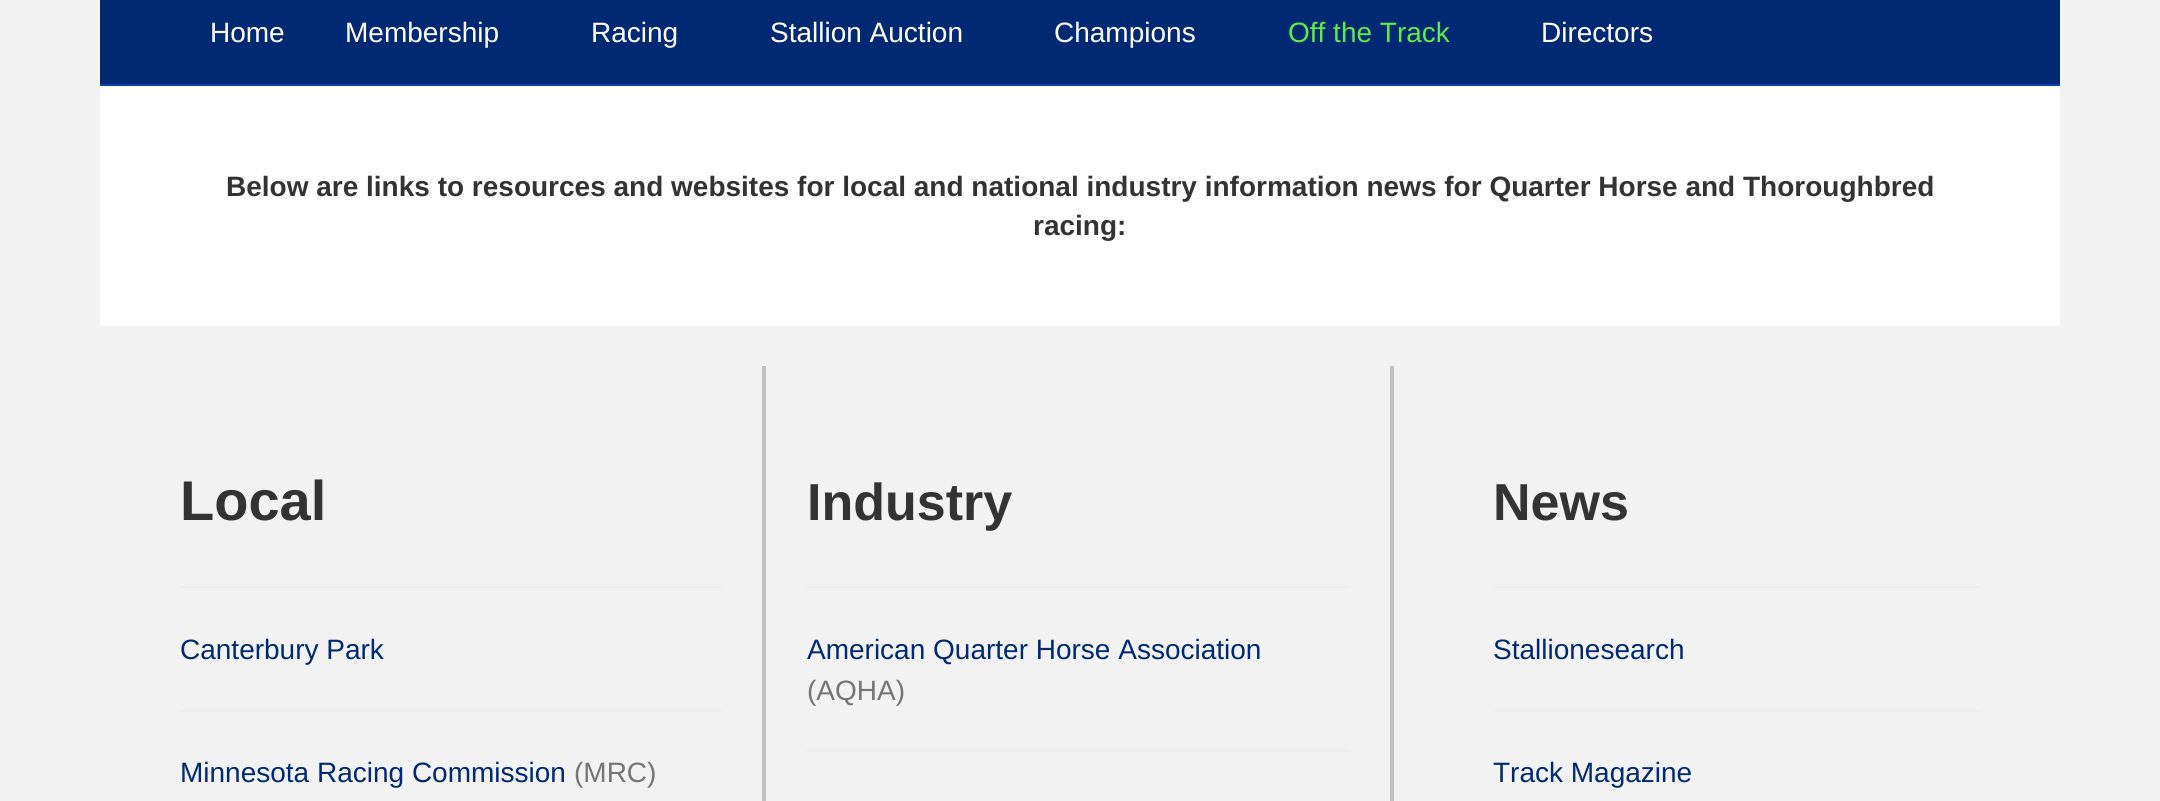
#include <cairo.h>
#include <math.h>
#include <stddef.h>

static cairo_t *ctx;

static void use_color(int r, int g, int b) {
    cairo_set_source_rgb(ctx, r / 255.0, g / 255.0, b / 255.0);
}

int main(void) {
    cairo_surface_t *surface = cairo_image_surface_create(CAIRO_FORMAT_RGB24, 2160, 801);
    ctx = cairo_create(surface);
    cairo_font_options_t *options = cairo_font_options_create();
    cairo_font_options_set_hint_metrics(options, CAIRO_HINT_METRICS_OFF);
    cairo_font_options_set_hint_style(options, CAIRO_HINT_STYLE_NONE);
    cairo_set_font_options(ctx, options);
    cairo_set_miter_limit(ctx, 4);
    use_color(242, 242, 242);
    cairo_paint(ctx);
    use_color(0, 41, 115);
    cairo_rectangle(ctx, 100, 0, 1960, 84);
    cairo_fill(ctx);
    use_color(0, 65, 181);
    cairo_rectangle(ctx, 100, 84, 1960, 2);
    cairo_fill(ctx);
    cairo_select_font_face(ctx, "Liberation Sans", CAIRO_FONT_SLANT_NORMAL, CAIRO_FONT_WEIGHT_NORMAL);
    cairo_set_font_size(ctx, 28);
    use_color(255, 255, 255);
    cairo_move_to(ctx, 210, 42);
    cairo_show_text(ctx, "Home");
    cairo_move_to(ctx, 345, 42);
    cairo_show_text(ctx, "Membership");
    cairo_move_to(ctx, 591, 42);
    cairo_show_text(ctx, "Racing");
    cairo_move_to(ctx, 770, 42);
    cairo_show_text(ctx, "Stallion Auction");
    cairo_move_to(ctx, 1054, 42);
    cairo_show_text(ctx, "Champions");
    use_color(99, 232, 76);
    cairo_move_to(ctx, 1288, 42);
    cairo_show_text(ctx, "Off the Track");
    use_color(255, 255, 255);
    cairo_move_to(ctx, 1541, 42);
    cairo_show_text(ctx, "Directors");
    cairo_rectangle(ctx, 100, 86, 1960, 240);
    cairo_fill(ctx);
    cairo_select_font_face(ctx, "Liberation Sans", CAIRO_FONT_SLANT_NORMAL, CAIRO_FONT_WEIGHT_BOLD);
    use_color(51, 51, 51);
    cairo_move_to(ctx, 226, 196);
    cairo_show_text(ctx, "Below are links to resources and websites for local and national industry information news for Quarter Horse and Thoroughbred");
    cairo_move_to(ctx, 1033, 235);
    cairo_show_text(ctx, "racing:");
    use_color(193, 193, 193);
    cairo_rectangle(ctx, 762, 366, 4, 435);
    cairo_fill(ctx);
    cairo_set_font_size(ctx, 56);
    use_color(51, 51, 51);
    cairo_move_to(ctx, 180, 520);
    cairo_show_text(ctx, "Local");
    use_color(238, 238, 238);
    cairo_rectangle(ctx, 180, 586, 542, 2);
    cairo_fill(ctx);
    cairo_select_font_face(ctx, "Liberation Sans", CAIRO_FONT_SLANT_NORMAL, CAIRO_FONT_WEIGHT_NORMAL);
    cairo_set_font_size(ctx, 28);
    use_color(0, 41, 115);
    cairo_move_to(ctx, 180, 659);
    cairo_show_text(ctx, "Canterbury Park");
    use_color(238, 238, 238);
    cairo_rectangle(ctx, 180, 710, 542, 2);
    cairo_fill(ctx);
    use_color(0, 41, 115);
    cairo_move_to(ctx, 180, 782);
    cairo_show_text(ctx, "Minnesota Racing Commission");
    use_color(117, 117, 117);
    cairo_move_to(ctx, 574, 782);
    cairo_show_text(ctx, "(MRC)");
    use_color(193, 193, 193);
    cairo_rectangle(ctx, 1390, 366, 4, 435);
    cairo_fill(ctx);
    cairo_select_font_face(ctx, "Liberation Sans", CAIRO_FONT_SLANT_NORMAL, CAIRO_FONT_WEIGHT_BOLD);
    cairo_set_font_size(ctx, 52);
    use_color(51, 51, 51);
    cairo_move_to(ctx, 807, 520);
    cairo_show_text(ctx, "Industry");
    use_color(238, 238, 238);
    cairo_rectangle(ctx, 806, 586, 544, 2);
    cairo_fill(ctx);
    cairo_select_font_face(ctx, "Liberation Sans", CAIRO_FONT_SLANT_NORMAL, CAIRO_FONT_WEIGHT_NORMAL);
    cairo_set_font_size(ctx, 28);
    use_color(0, 41, 115);
    cairo_move_to(ctx, 807, 659);
    cairo_show_text(ctx, "American Quarter Horse Association");
    use_color(117, 117, 117);
    cairo_move_to(ctx, 807, 700);
    cairo_show_text(ctx, "(AQHA)");
    use_color(238, 238, 238);
    cairo_rectangle(ctx, 806, 750, 544, 2);
    cairo_fill(ctx);
    cairo_select_font_face(ctx, "Liberation Sans", CAIRO_FONT_SLANT_NORMAL, CAIRO_FONT_WEIGHT_BOLD);
    cairo_set_font_size(ctx, 52);
    use_color(51, 51, 51);
    cairo_move_to(ctx, 1493, 520);
    cairo_show_text(ctx, "News");
    use_color(238, 238, 238);
    cairo_rectangle(ctx, 1494, 586, 486, 2);
    cairo_fill(ctx);
    cairo_select_font_face(ctx, "Liberation Sans", CAIRO_FONT_SLANT_NORMAL, CAIRO_FONT_WEIGHT_NORMAL);
    cairo_set_font_size(ctx, 28);
    use_color(0, 41, 115);
    cairo_move_to(ctx, 1493, 659);
    cairo_show_text(ctx, "Stallionesearch");
    use_color(238, 238, 238);
    cairo_rectangle(ctx, 1494, 710, 486, 2);
    cairo_fill(ctx);
    use_color(0, 41, 115);
    cairo_move_to(ctx, 1493, 782);
    cairo_show_text(ctx, "Track Magazine");
    cairo_surface_write_to_png(surface, "result.png");
    cairo_font_options_destroy(options);
    cairo_destroy(ctx);
    cairo_surface_destroy(surface);
    return 0;
}
